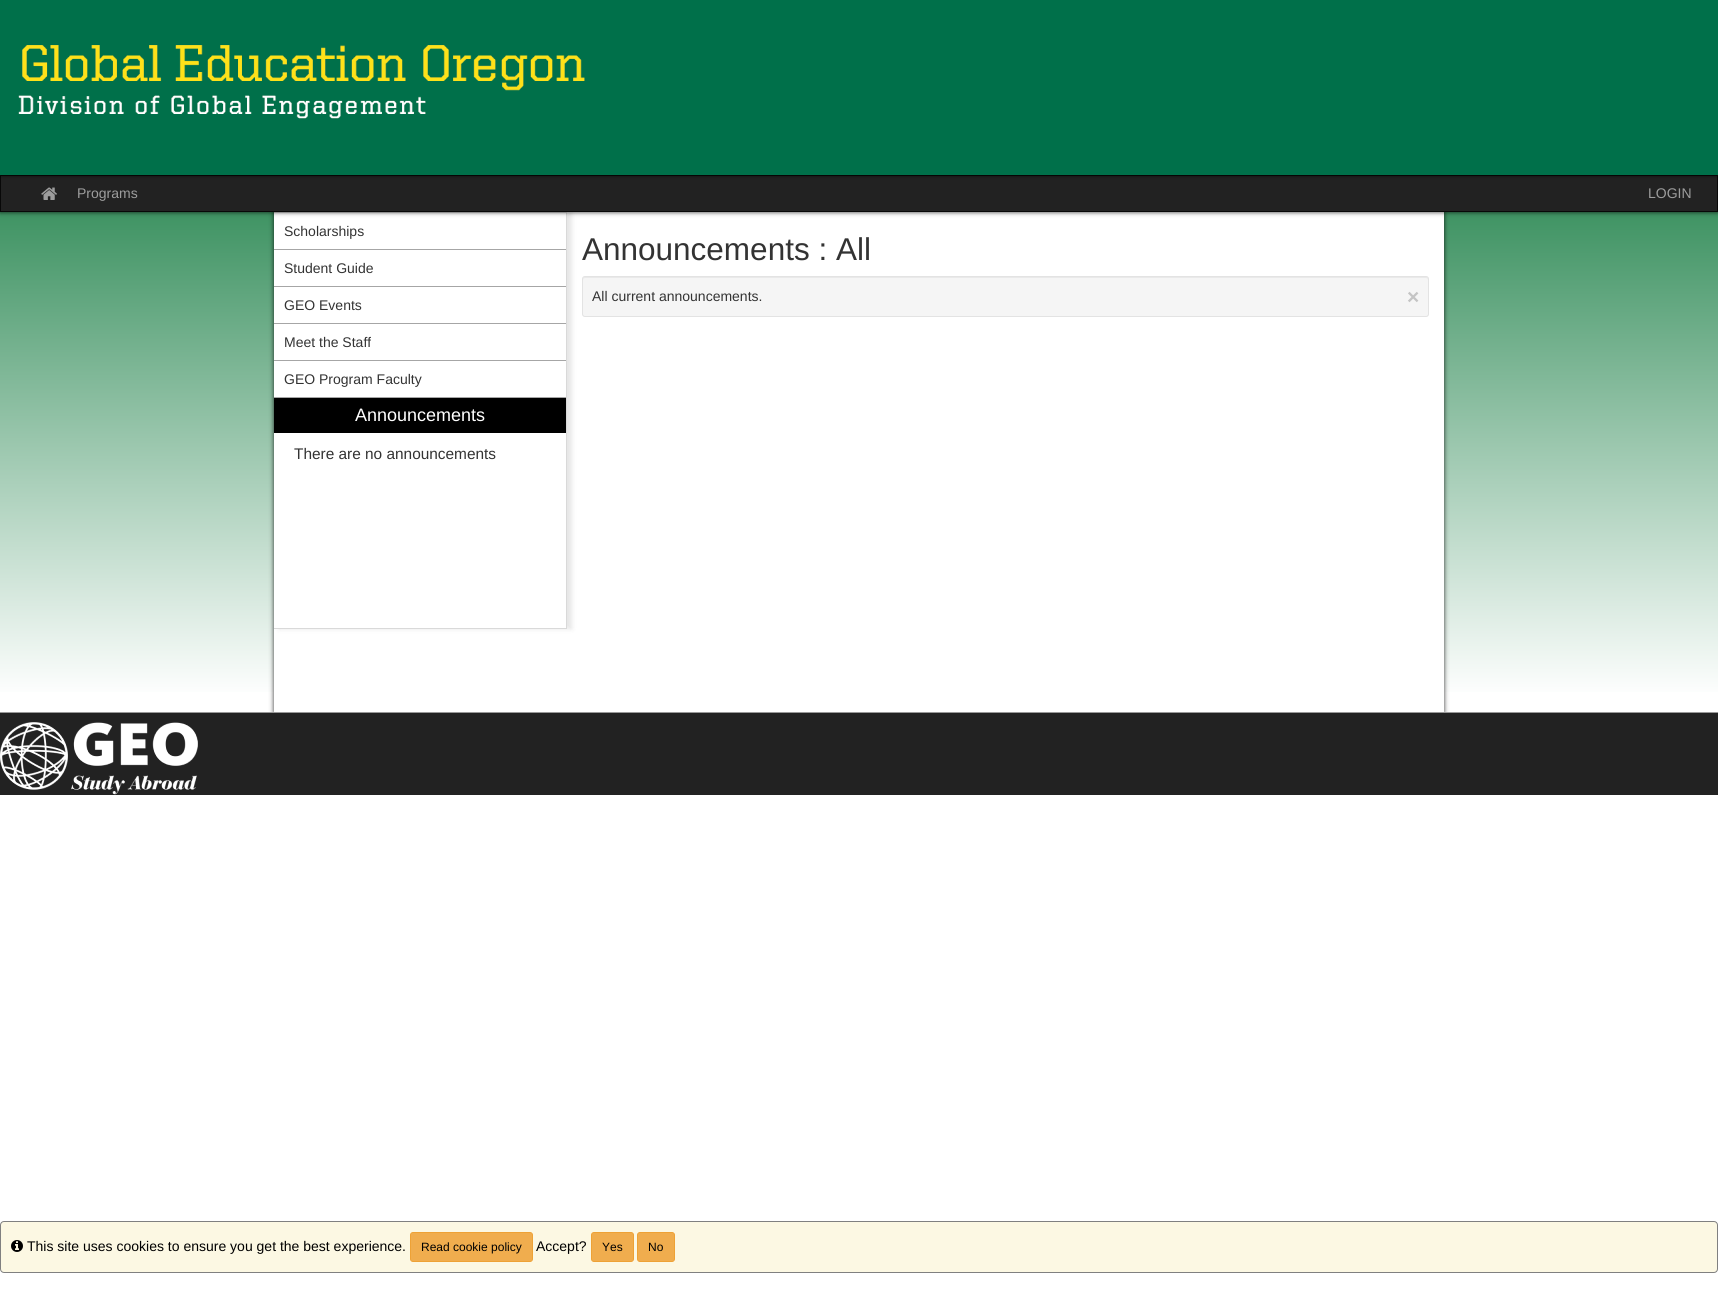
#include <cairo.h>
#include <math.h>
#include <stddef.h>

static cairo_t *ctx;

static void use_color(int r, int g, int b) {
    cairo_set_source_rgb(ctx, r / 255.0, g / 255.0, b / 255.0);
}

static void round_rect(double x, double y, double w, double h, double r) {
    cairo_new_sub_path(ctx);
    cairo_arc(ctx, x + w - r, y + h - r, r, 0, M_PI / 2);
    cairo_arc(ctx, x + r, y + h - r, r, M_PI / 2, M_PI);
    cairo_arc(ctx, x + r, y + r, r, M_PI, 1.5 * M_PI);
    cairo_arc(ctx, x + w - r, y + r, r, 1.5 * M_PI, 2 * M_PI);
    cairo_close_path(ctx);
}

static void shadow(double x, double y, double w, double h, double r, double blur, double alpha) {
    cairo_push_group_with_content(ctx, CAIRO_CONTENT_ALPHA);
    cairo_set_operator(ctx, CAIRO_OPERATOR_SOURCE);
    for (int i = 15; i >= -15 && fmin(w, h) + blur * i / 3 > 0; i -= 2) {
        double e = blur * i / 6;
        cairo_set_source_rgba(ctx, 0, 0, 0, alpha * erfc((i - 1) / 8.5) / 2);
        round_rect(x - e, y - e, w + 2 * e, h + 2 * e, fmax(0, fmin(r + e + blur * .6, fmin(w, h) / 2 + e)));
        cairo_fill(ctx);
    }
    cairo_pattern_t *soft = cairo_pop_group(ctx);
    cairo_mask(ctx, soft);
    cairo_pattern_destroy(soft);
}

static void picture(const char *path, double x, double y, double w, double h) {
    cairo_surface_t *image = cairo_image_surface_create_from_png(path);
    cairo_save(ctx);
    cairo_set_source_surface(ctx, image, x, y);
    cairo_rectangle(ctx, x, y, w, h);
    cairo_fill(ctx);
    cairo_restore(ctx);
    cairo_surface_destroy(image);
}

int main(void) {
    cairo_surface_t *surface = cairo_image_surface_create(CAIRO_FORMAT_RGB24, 1718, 1293);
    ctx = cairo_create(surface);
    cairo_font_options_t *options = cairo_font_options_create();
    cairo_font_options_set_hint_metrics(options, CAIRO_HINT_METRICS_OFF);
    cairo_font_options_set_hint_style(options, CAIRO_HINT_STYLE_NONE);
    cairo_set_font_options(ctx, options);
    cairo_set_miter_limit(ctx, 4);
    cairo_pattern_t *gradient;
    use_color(255, 255, 255);
    cairo_paint(ctx);
    gradient = cairo_pattern_create_linear(859, 0, 859, 1293);
    cairo_pattern_add_color_stop_rgba(gradient, 0.04, 0, 0.439, 0.188, 1);
    cairo_pattern_add_color_stop_rgba(gradient, 0.54, 1, 1, 1, 1);
    cairo_set_source(ctx, gradient);
    cairo_pattern_destroy(gradient);
    cairo_rectangle(ctx, 0, 212, 1718, 480);
    cairo_fill(ctx);
    use_color(0, 0, 0);
    shadow(274, 212, 1170, 500, 0, 2.5, 0.8);
    use_color(255, 255, 255);
    cairo_rectangle(ctx, 274, 212, 1170, 500);
    cairo_fill(ctx);
    cairo_save(ctx);
    cairo_set_fill_rule(ctx, CAIRO_FILL_RULE_EVEN_ODD);
    cairo_new_path(ctx);
    cairo_move_to(ctx, 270, 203);
    cairo_line_to(ctx, 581, 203);
    cairo_line_to(ctx, 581, 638);
    cairo_line_to(ctx, 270, 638);
    cairo_close_path(ctx);
    cairo_move_to(ctx, 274, 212);
    cairo_line_to(ctx, 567, 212);
    cairo_line_to(ctx, 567, 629);
    cairo_line_to(ctx, 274, 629);
    cairo_close_path(ctx);
    cairo_clip(ctx);
    use_color(0, 0, 0);
    shadow(279, 212, 293, 417, 0, 2.5, 0.1);
    cairo_restore(ctx);
    use_color(217, 217, 217);
    cairo_new_path(ctx);
    cairo_move_to(ctx, 274, 212);
    cairo_line_to(ctx, 567, 212);
    cairo_line_to(ctx, 566, 213);
    cairo_line_to(ctx, 274, 213);
    cairo_close_path(ctx);
    cairo_fill(ctx);
    cairo_set_source_rgba(ctx, 0, 0, 0, 0.15);
    cairo_new_path(ctx);
    cairo_move_to(ctx, 567, 212);
    cairo_line_to(ctx, 567, 629);
    cairo_line_to(ctx, 566, 628);
    cairo_line_to(ctx, 566, 213);
    cairo_close_path(ctx);
    cairo_fill(ctx);
    use_color(0, 0, 0);
    shadow(0, 175, 1718, 37, 0, 2.5, 0.8);
    use_color(34, 34, 34);
    cairo_rectangle(ctx, 0.5, 175.5, 1717, 36);
    cairo_fill_preserve(ctx);
    use_color(8, 8, 8);
    cairo_set_line_width(ctx, 1);
    cairo_stroke(ctx);
    use_color(0, 0, 0);
    shadow(0, 0, 1718, 175, 0, 2.5, 0.8);
    picture("img1.png", 0, 0, 1718, 175);
    picture("img2.png", 41, 187, 16, 13);
    cairo_select_font_face(ctx, "Liberation Sans", CAIRO_FONT_SLANT_NORMAL, CAIRO_FONT_WEIGHT_NORMAL);
    cairo_set_font_size(ctx, 14);
    use_color(157, 157, 157);
    cairo_move_to(ctx, 77, 198);
    cairo_show_text(ctx, "Programs");
    cairo_move_to(ctx, 1648, 198);
    cairo_show_text(ctx, "LOGIN");
    cairo_set_source_rgba(ctx, 0, 0, 0, 0.15);
    cairo_new_path(ctx);
    cairo_move_to(ctx, 567, 629);
    cairo_line_to(ctx, 274, 629);
    cairo_line_to(ctx, 274, 628);
    cairo_line_to(ctx, 566, 628);
    cairo_close_path(ctx);
    cairo_fill(ctx);
    use_color(166, 166, 166);
    cairo_rectangle(ctx, 274, 249, 292, 1);
    cairo_fill(ctx);
    use_color(51, 51, 51);
    cairo_move_to(ctx, 284, 236);
    cairo_show_text(ctx, "Scholarships");
    use_color(166, 166, 166);
    cairo_rectangle(ctx, 274, 286, 292, 1);
    cairo_fill(ctx);
    use_color(51, 51, 51);
    cairo_move_to(ctx, 284, 273);
    cairo_show_text(ctx, "Student Guide");
    use_color(166, 166, 166);
    cairo_rectangle(ctx, 274, 323, 292, 1);
    cairo_fill(ctx);
    use_color(51, 51, 51);
    cairo_move_to(ctx, 284, 310);
    cairo_show_text(ctx, "GEO Events");
    use_color(166, 166, 166);
    cairo_rectangle(ctx, 274, 360, 292, 1);
    cairo_fill(ctx);
    use_color(51, 51, 51);
    cairo_move_to(ctx, 284, 347);
    cairo_show_text(ctx, "Meet the Staff");
    use_color(166, 166, 166);
    cairo_rectangle(ctx, 274, 397, 292, 1);
    cairo_fill(ctx);
    use_color(51, 51, 51);
    cairo_move_to(ctx, 284, 384);
    cairo_show_text(ctx, "GEO Program Faculty");
    use_color(0, 0, 0);
    cairo_rectangle(ctx, 274, 398, 292, 35);
    cairo_fill(ctx);
    cairo_set_font_size(ctx, 18);
    use_color(255, 255, 255);
    cairo_move_to(ctx, 355, 421);
    cairo_show_text(ctx, "Announcements");
    cairo_set_font_size(ctx, 15.4);
    use_color(51, 51, 51);
    cairo_move_to(ctx, 294, 459);
    cairo_show_text(ctx, "There are no announcements");
    cairo_set_font_size(ctx, 31.5);
    cairo_move_to(ctx, 582, 260);
    cairo_show_text(ctx, "Announcements : All");
    use_color(245, 245, 245);
    round_rect(582, 276, 847, 41, 3);
    cairo_fill(ctx);
    use_color(233, 233, 233);
    cairo_new_path(ctx);
    cairo_move_to(ctx, 585, 278);
    cairo_line_to(ctx, 1426, 278);
    cairo_curve_to(ctx, 1427, 278, 1428, 279, 1428, 280);
    cairo_curve_to(ctx, 1428, 279, 1428, 277, 1426, 277);
    cairo_line_to(ctx, 585, 277);
    cairo_curve_to(ctx, 583, 277, 583, 279, 583, 280);
    cairo_curve_to(ctx, 583, 279, 584, 278, 585, 278);
    cairo_close_path(ctx);
    cairo_fill(ctx);
    round_rect(582.5, 276.5, 846, 40, 2.5);
    use_color(227, 227, 227);
    cairo_stroke(ctx);
    cairo_set_font_size(ctx, 14);
    use_color(51, 51, 51);
    cairo_move_to(ctx, 592, 301);
    cairo_show_text(ctx, "All current announcements.");
    cairo_select_font_face(ctx, "Liberation Sans", CAIRO_FONT_SLANT_NORMAL, CAIRO_FONT_WEIGHT_BOLD);
    cairo_set_font_size(ctx, 21);
    use_color(196, 196, 196);
    cairo_move_to(ctx, 1407, 304);
    cairo_show_text(ctx, "×");
    use_color(34, 34, 34);
    cairo_rectangle(ctx, 0, 713, 1718, 82);
    cairo_fill(ctx);
    use_color(153, 153, 153);
    cairo_rectangle(ctx, 0, 712, 1718, 1);
    cairo_fill(ctx);
    picture("img3.png", 0, 722, 198, 73);
    use_color(252, 248, 227);
    round_rect(0.5, 1221.5, 1717, 51, 3.5);
    cairo_fill_preserve(ctx);
    use_color(128, 128, 128);
    cairo_stroke(ctx);
    picture("img4.png", 11, 1240, 12, 12);
    cairo_select_font_face(ctx, "Liberation Sans", CAIRO_FONT_SLANT_NORMAL, CAIRO_FONT_WEIGHT_NORMAL);
    cairo_set_font_size(ctx, 14);
    use_color(0, 0, 0);
    cairo_move_to(ctx, 27, 1251);
    cairo_show_text(ctx, "This site uses cookies to ensure you get the best experience.");
    use_color(240, 173, 78);
    round_rect(410.5, 1232.5, 122, 29, 2.5);
    cairo_fill_preserve(ctx);
    use_color(238, 162, 54);
    cairo_stroke(ctx);
    cairo_set_font_size(ctx, 12);
    use_color(0, 0, 0);
    cairo_move_to(ctx, 421, 1251);
    cairo_show_text(ctx, "Read cookie policy");
    cairo_set_font_size(ctx, 14);
    cairo_move_to(ctx, 536, 1251);
    cairo_show_text(ctx, "Accept?");
    use_color(240, 173, 78);
    round_rect(591.5, 1232.5, 42, 29, 2.5);
    cairo_fill_preserve(ctx);
    use_color(238, 162, 54);
    cairo_stroke(ctx);
    cairo_set_font_size(ctx, 12);
    use_color(0, 0, 0);
    cairo_move_to(ctx, 602, 1251);
    cairo_show_text(ctx, "Yes");
    use_color(240, 173, 78);
    round_rect(637.5, 1232.5, 37, 29, 2.5);
    cairo_fill_preserve(ctx);
    use_color(238, 162, 54);
    cairo_stroke(ctx);
    use_color(0, 0, 0);
    cairo_move_to(ctx, 648, 1251);
    cairo_show_text(ctx, "No");
    cairo_surface_write_to_png(surface, "result.png");
    cairo_font_options_destroy(options);
    cairo_destroy(ctx);
    cairo_surface_destroy(surface);
    return 0;
}
